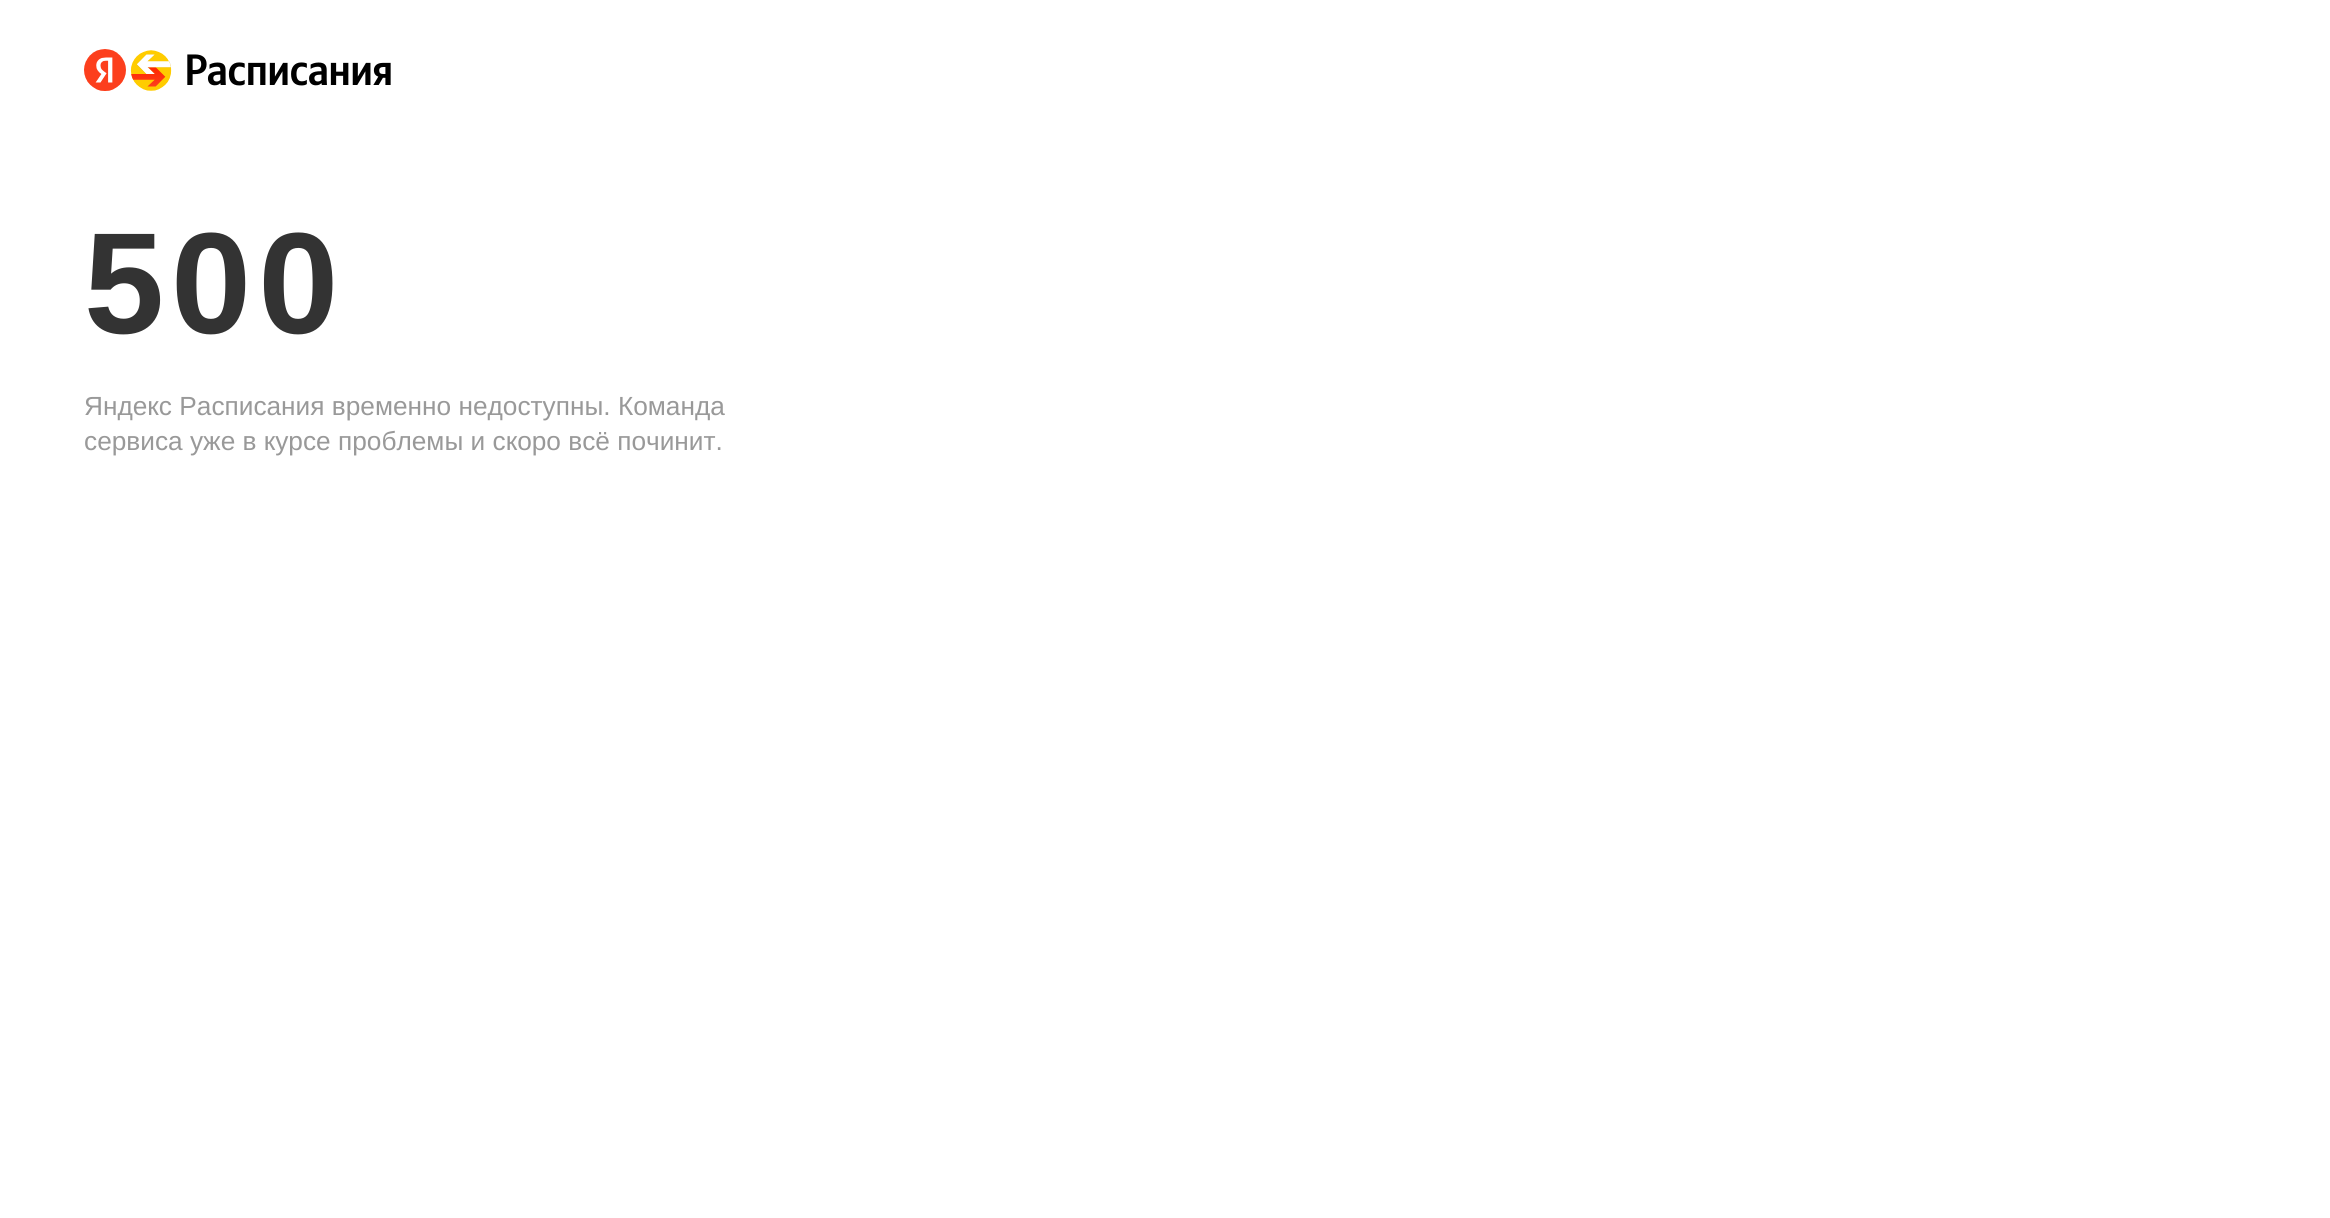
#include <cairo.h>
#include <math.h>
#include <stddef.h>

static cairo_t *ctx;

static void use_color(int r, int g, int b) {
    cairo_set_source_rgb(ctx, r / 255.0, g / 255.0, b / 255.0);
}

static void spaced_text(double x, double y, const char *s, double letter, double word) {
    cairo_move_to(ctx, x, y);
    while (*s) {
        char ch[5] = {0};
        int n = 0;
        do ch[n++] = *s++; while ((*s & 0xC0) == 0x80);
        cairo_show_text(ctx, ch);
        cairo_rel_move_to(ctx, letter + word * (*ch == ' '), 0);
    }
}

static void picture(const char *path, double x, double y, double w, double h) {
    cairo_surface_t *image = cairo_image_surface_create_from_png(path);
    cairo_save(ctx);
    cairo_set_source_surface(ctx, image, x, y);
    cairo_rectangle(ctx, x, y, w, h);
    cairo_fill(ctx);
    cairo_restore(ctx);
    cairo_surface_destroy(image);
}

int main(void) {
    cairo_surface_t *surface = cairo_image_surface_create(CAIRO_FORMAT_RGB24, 2330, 1218);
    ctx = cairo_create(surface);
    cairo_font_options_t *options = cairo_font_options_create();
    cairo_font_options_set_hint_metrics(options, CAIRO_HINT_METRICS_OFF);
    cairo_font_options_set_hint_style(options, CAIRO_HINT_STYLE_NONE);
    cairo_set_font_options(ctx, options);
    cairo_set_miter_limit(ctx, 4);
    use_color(255, 255, 255);
    cairo_paint(ctx);
    picture("img1.png", 84, 49, 42, 42);
    picture("img2.png", 130, 50, 42, 41);
    picture("img3.png", 187, 54, 204, 32);
    cairo_select_font_face(ctx, "Liberation Sans", CAIRO_FONT_SLANT_NORMAL, CAIRO_FONT_WEIGHT_BOLD);
    cairo_set_font_size(ctx, 144);
    use_color(51, 51, 51);
    spaced_text(84, 333, "500", 7, 0);
    cairo_select_font_face(ctx, "Liberation Sans", CAIRO_FONT_SLANT_NORMAL, CAIRO_FONT_WEIGHT_NORMAL);
    cairo_set_font_size(ctx, 26.25);
    use_color(153, 153, 153);
    cairo_move_to(ctx, 84, 415);
    cairo_show_text(ctx, "Яндекс Расписания временно недоступны. Команда");
    cairo_move_to(ctx, 84, 450);
    cairo_show_text(ctx, "сервиса уже в курсе проблемы и скоро всё починит.");
    cairo_surface_write_to_png(surface, "result.png");
    cairo_font_options_destroy(options);
    cairo_destroy(ctx);
    cairo_surface_destroy(surface);
    return 0;
}
